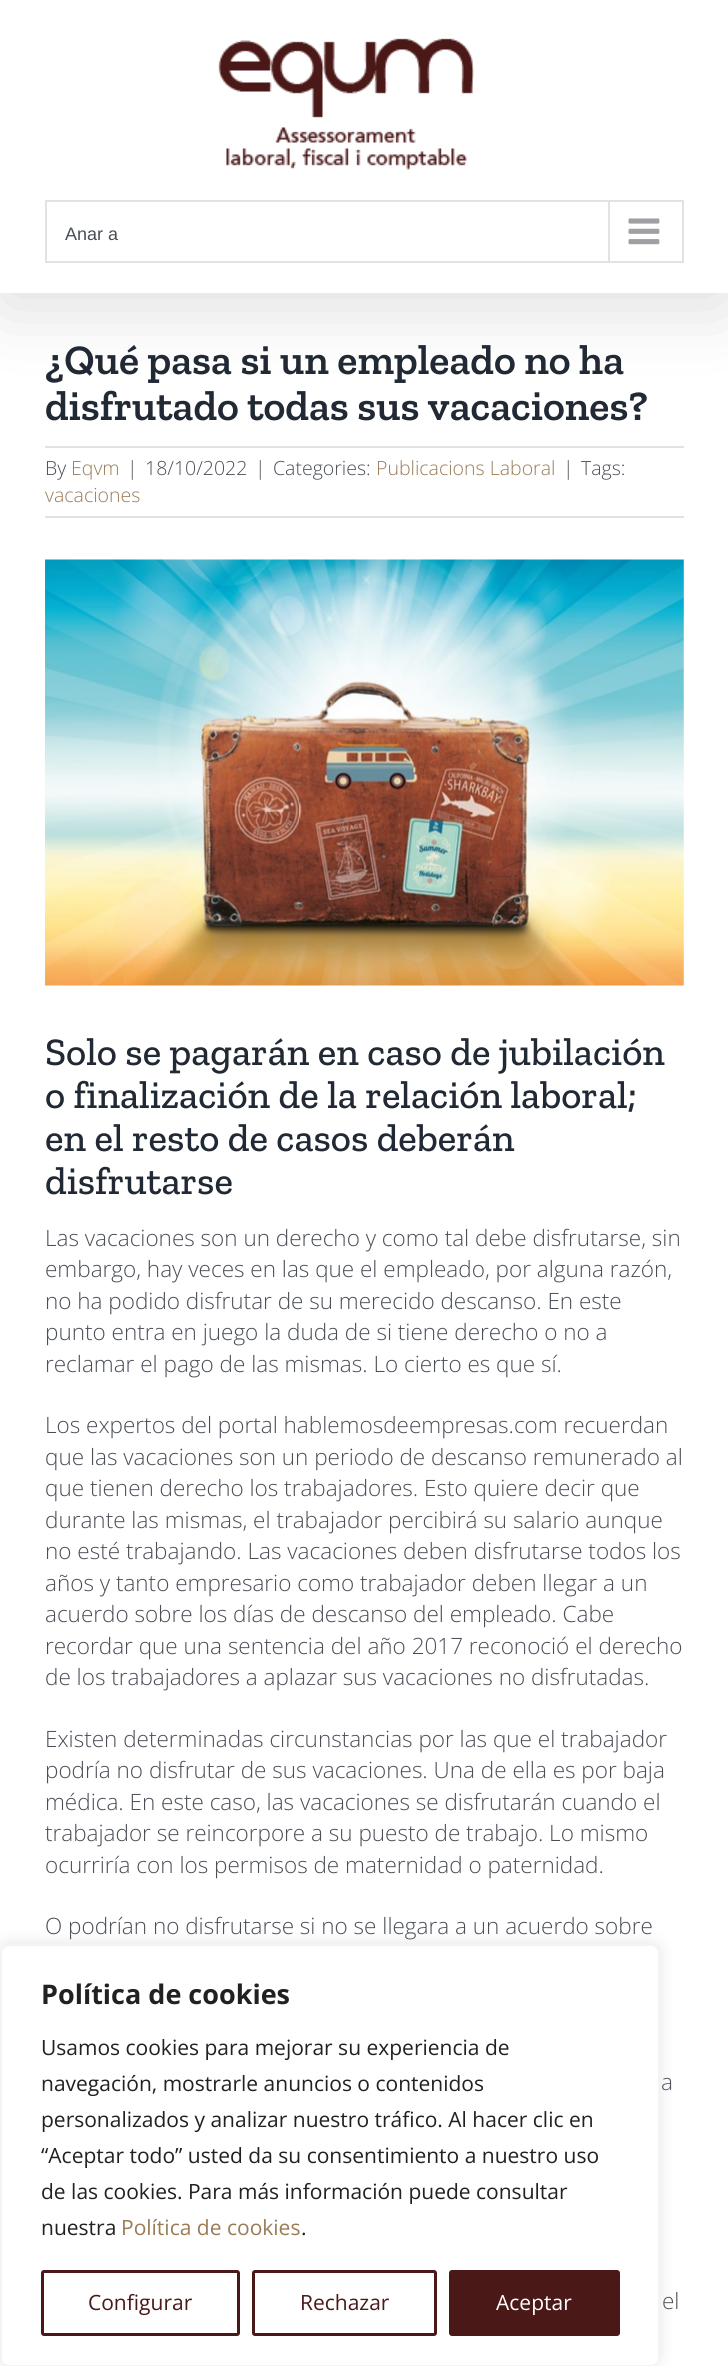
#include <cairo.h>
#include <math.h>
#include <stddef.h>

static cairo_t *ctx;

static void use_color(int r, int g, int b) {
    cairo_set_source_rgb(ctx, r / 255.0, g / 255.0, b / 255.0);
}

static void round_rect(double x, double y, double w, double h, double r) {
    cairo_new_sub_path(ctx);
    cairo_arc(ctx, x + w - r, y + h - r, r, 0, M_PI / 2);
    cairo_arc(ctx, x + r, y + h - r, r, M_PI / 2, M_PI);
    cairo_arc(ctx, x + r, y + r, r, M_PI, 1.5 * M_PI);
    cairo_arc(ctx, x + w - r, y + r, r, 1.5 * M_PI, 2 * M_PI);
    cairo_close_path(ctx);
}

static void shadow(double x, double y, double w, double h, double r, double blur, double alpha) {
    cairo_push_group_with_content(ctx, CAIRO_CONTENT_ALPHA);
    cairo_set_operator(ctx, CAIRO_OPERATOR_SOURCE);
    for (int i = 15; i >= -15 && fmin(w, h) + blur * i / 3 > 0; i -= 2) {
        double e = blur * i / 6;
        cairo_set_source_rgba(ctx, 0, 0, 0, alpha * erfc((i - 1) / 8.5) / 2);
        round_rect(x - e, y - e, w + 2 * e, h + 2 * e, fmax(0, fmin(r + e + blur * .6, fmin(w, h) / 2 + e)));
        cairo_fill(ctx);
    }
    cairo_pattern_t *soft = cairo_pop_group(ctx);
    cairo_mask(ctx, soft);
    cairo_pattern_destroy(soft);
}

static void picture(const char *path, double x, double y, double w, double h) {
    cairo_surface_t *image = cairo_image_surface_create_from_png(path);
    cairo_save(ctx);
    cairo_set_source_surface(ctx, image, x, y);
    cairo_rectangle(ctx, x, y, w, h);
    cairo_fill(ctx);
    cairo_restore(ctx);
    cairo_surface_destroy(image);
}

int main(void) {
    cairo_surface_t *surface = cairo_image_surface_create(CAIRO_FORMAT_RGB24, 728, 2366);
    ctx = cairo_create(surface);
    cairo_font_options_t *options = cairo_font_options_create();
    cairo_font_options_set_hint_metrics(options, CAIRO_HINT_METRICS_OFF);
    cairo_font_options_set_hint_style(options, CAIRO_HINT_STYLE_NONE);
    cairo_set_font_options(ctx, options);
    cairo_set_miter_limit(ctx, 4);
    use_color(255, 255, 255);
    cairo_paint(ctx);
    use_color(0, 0, 0);
    shadow(3, 18, 723, 287, 0, 37.5, 0.14);
    use_color(255, 255, 255);
    cairo_rectangle(ctx, 0, 0, 728, 293);
    cairo_fill(ctx);
    picture("img1.png", 218, 38, 256, 132);
    cairo_rectangle(ctx, 46, 201, 637, 61);
    use_color(226, 226, 226);
    cairo_stroke(ctx);
    cairo_select_font_face(ctx, "Liberation Sans", CAIRO_FONT_SLANT_NORMAL, CAIRO_FONT_WEIGHT_NORMAL);
    cairo_set_font_size(ctx, 18);
    use_color(74, 78, 87);
    cairo_move_to(ctx, 65, 240);
    cairo_show_text(ctx, "Anar a");
    use_color(226, 226, 226);
    cairo_rectangle(ctx, 608, 201, 2, 60);
    cairo_fill(ctx);
    picture("img2.png", 628, 218, 32, 27);
    cairo_select_font_face(ctx, "Zilla Slab SemiBold", CAIRO_FONT_SLANT_NORMAL, CAIRO_FONT_WEIGHT_NORMAL);
    cairo_set_font_size(ctx, 42);
    use_color(33, 41, 52);
    cairo_move_to(ctx, 45, 374);
    cairo_show_text(ctx, "¿Qué pasa si un empleado no ha");
    cairo_move_to(ctx, 45, 420);
    cairo_show_text(ctx, "disfrutado todas sus vacaciones?");
    use_color(226, 226, 226);
    cairo_rectangle(ctx, 45, 446, 639, 2);
    cairo_fill(ctx);
    cairo_rectangle(ctx, 45, 516, 639, 2);
    cairo_fill(ctx);
    cairo_select_font_face(ctx, "Open Sans Light", CAIRO_FONT_SLANT_NORMAL, CAIRO_FONT_WEIGHT_NORMAL);
    cairo_set_font_size(ctx, 19.5);
    use_color(74, 78, 87);
    cairo_move_to(ctx, 45, 475);
    cairo_show_text(ctx, "By");
    use_color(154, 123, 86);
    cairo_move_to(ctx, 71, 475);
    cairo_show_text(ctx, "Eqvm");
    use_color(74, 78, 87);
    cairo_move_to(ctx, 127, 475);
    cairo_show_text(ctx, "|");
    cairo_move_to(ctx, 145, 475);
    cairo_show_text(ctx, "18/10/2022");
    cairo_move_to(ctx, 255, 475);
    cairo_show_text(ctx, "|");
    cairo_move_to(ctx, 273, 475);
    cairo_show_text(ctx, "Categories:");
    use_color(154, 123, 86);
    cairo_move_to(ctx, 376, 475);
    cairo_show_text(ctx, "Publicacions Laboral");
    use_color(74, 78, 87);
    cairo_move_to(ctx, 563, 475);
    cairo_show_text(ctx, "|");
    cairo_move_to(ctx, 581, 475);
    cairo_show_text(ctx, "Tags:");
    use_color(154, 123, 86);
    cairo_move_to(ctx, 45, 502);
    cairo_show_text(ctx, "vacaciones");
    picture("img3.png", 45, 559, 639, 427);
    cairo_select_font_face(ctx, "Zilla Slab Medium", CAIRO_FONT_SLANT_NORMAL, CAIRO_FONT_WEIGHT_NORMAL);
    cairo_set_font_size(ctx, 39);
    use_color(33, 41, 52);
    cairo_move_to(ctx, 45, 1065);
    cairo_show_text(ctx, "Solo se pagarán en caso de jubilación");
    cairo_move_to(ctx, 45, 1108);
    cairo_show_text(ctx, "o finalización de la relación laboral;");
    cairo_move_to(ctx, 45, 1151);
    cairo_show_text(ctx, "en el resto de casos deberán");
    cairo_move_to(ctx, 45, 1194);
    cairo_show_text(ctx, "disfrutarse");
    cairo_select_font_face(ctx, "Open Sans Light", CAIRO_FONT_SLANT_NORMAL, CAIRO_FONT_WEIGHT_NORMAL);
    cairo_set_font_size(ctx, 22.5);
    use_color(74, 78, 87);
    cairo_move_to(ctx, 45, 1246);
    cairo_show_text(ctx, "Las vacaciones son un derecho y como tal debe disfrutarse, sin");
    cairo_move_to(ctx, 45, 1277);
    cairo_show_text(ctx, "embargo, hay veces en las que el empleado, por alguna razón,");
    cairo_move_to(ctx, 45, 1309);
    cairo_show_text(ctx, "no ha podido disfrutar de su merecido descanso. En este");
    cairo_move_to(ctx, 45, 1340);
    cairo_show_text(ctx, "punto entra en juego la duda de si tiene derecho o no a");
    cairo_move_to(ctx, 45, 1372);
    cairo_show_text(ctx, "reclamar el pago de las mismas. Lo cierto es que sí.");
    cairo_move_to(ctx, 45, 1433);
    cairo_show_text(ctx, "Los expertos del portal hablemosdeempresas.com recuerdan");
    cairo_move_to(ctx, 45, 1465);
    cairo_show_text(ctx, "que las vacaciones son un periodo de descanso remunerado al");
    cairo_move_to(ctx, 45, 1496);
    cairo_show_text(ctx, "que tienen derecho los trabajadores. Esto quiere decir que");
    cairo_move_to(ctx, 45, 1528);
    cairo_show_text(ctx, "durante las mismas, el trabajador percibirá su salario aunque");
    cairo_move_to(ctx, 45, 1559);
    cairo_show_text(ctx, "no esté trabajando. Las vacaciones deben disfrutarse todos los");
    cairo_move_to(ctx, 45, 1591);
    cairo_show_text(ctx, "años y tanto empresario como trabajador deben llegar a un");
    cairo_move_to(ctx, 45, 1622);
    cairo_show_text(ctx, "acuerdo sobre los días de descanso del empleado. Cabe");
    cairo_move_to(ctx, 45, 1654);
    cairo_show_text(ctx, "recordar que una sentencia del año 2017 reconoció el derecho");
    cairo_move_to(ctx, 45, 1685);
    cairo_show_text(ctx, "de los trabajadores a aplazar sus vacaciones no disfrutadas.");
    cairo_move_to(ctx, 45, 1747);
    cairo_show_text(ctx, "Existen determinadas circunstancias por las que el trabajador");
    cairo_move_to(ctx, 45, 1778);
    cairo_show_text(ctx, "podría no disfrutar de sus vacaciones. Una de ella es por baja");
    cairo_move_to(ctx, 45, 1810);
    cairo_show_text(ctx, "médica. En este caso, las vacaciones se disfrutarán cuando el");
    cairo_move_to(ctx, 45, 1841);
    cairo_show_text(ctx, "trabajador se reincorpore a su puesto de trabajo. Lo mismo");
    cairo_move_to(ctx, 45, 1873);
    cairo_show_text(ctx, "ocurriría con los permisos de maternidad o paternidad.");
    cairo_move_to(ctx, 45, 1934);
    cairo_show_text(ctx, "O podrían no disfrutarse si no se llegara a un acuerdo sobre");
    cairo_move_to(ctx, 661, 2090);
    cairo_show_text(ctx, "a");
    cairo_move_to(ctx, 662, 2309);
    cairo_show_text(ctx, "el");
    use_color(172, 171, 171);
    shadow(0, 1943, 660, 423, 9, 7.5, 0.3);
    use_color(255, 255, 255);
    round_rect(1, 1945, 658, 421, 8);
    cairo_fill_preserve(ctx);
    use_color(244, 244, 244);
    cairo_stroke(ctx);
    cairo_select_font_face(ctx, "Open Sans", CAIRO_FONT_SLANT_NORMAL, CAIRO_FONT_WEIGHT_BOLD);
    cairo_set_font_size(ctx, 27);
    use_color(33, 33, 33);
    cairo_move_to(ctx, 41, 2004);
    cairo_show_text(ctx, "Política de cookies");
    cairo_select_font_face(ctx, "Open Sans", CAIRO_FONT_SLANT_NORMAL, CAIRO_FONT_WEIGHT_NORMAL);
    cairo_set_font_size(ctx, 21);
    cairo_move_to(ctx, 41, 2055);
    cairo_show_text(ctx, "Usamos cookies para mejorar su experiencia de");
    cairo_move_to(ctx, 41, 2091);
    cairo_show_text(ctx, "navegación, mostrarle anuncios o contenidos");
    cairo_move_to(ctx, 41, 2127);
    cairo_show_text(ctx, "personalizados y analizar nuestro tráfico. Al hacer clic en");
    cairo_move_to(ctx, 41, 2163);
    cairo_show_text(ctx, "“Aceptar todo” usted da su consentimiento a nuestro uso");
    cairo_move_to(ctx, 41, 2199);
    cairo_show_text(ctx, "de las cookies. Para más información puede consultar");
    cairo_move_to(ctx, 41, 2235);
    cairo_show_text(ctx, "nuestra");
    use_color(154, 123, 86);
    cairo_move_to(ctx, 121, 2235);
    cairo_show_text(ctx, "Política de cookies");
    use_color(33, 33, 33);
    cairo_move_to(ctx, 301, 2235);
    cairo_show_text(ctx, ".");
    round_rect(42.5, 2271.5, 196, 63, 1.5);
    use_color(75, 24, 24);
    cairo_set_line_width(ctx, 3);
    cairo_stroke(ctx);
    cairo_move_to(ctx, 88, 2310);
    cairo_show_text(ctx, "Configurar");
    round_rect(253.5, 2271.5, 182, 63, 1.5);
    cairo_stroke(ctx);
    cairo_move_to(ctx, 300, 2310);
    cairo_show_text(ctx, "Rechazar");
    round_rect(450.5, 2271.5, 168, 63, 1.5);
    cairo_fill_preserve(ctx);
    cairo_stroke(ctx);
    use_color(255, 255, 255);
    cairo_move_to(ctx, 496, 2310);
    cairo_show_text(ctx, "Aceptar");
    cairo_surface_write_to_png(surface, "result.png");
    cairo_font_options_destroy(options);
    cairo_destroy(ctx);
    cairo_surface_destroy(surface);
    return 0;
}
